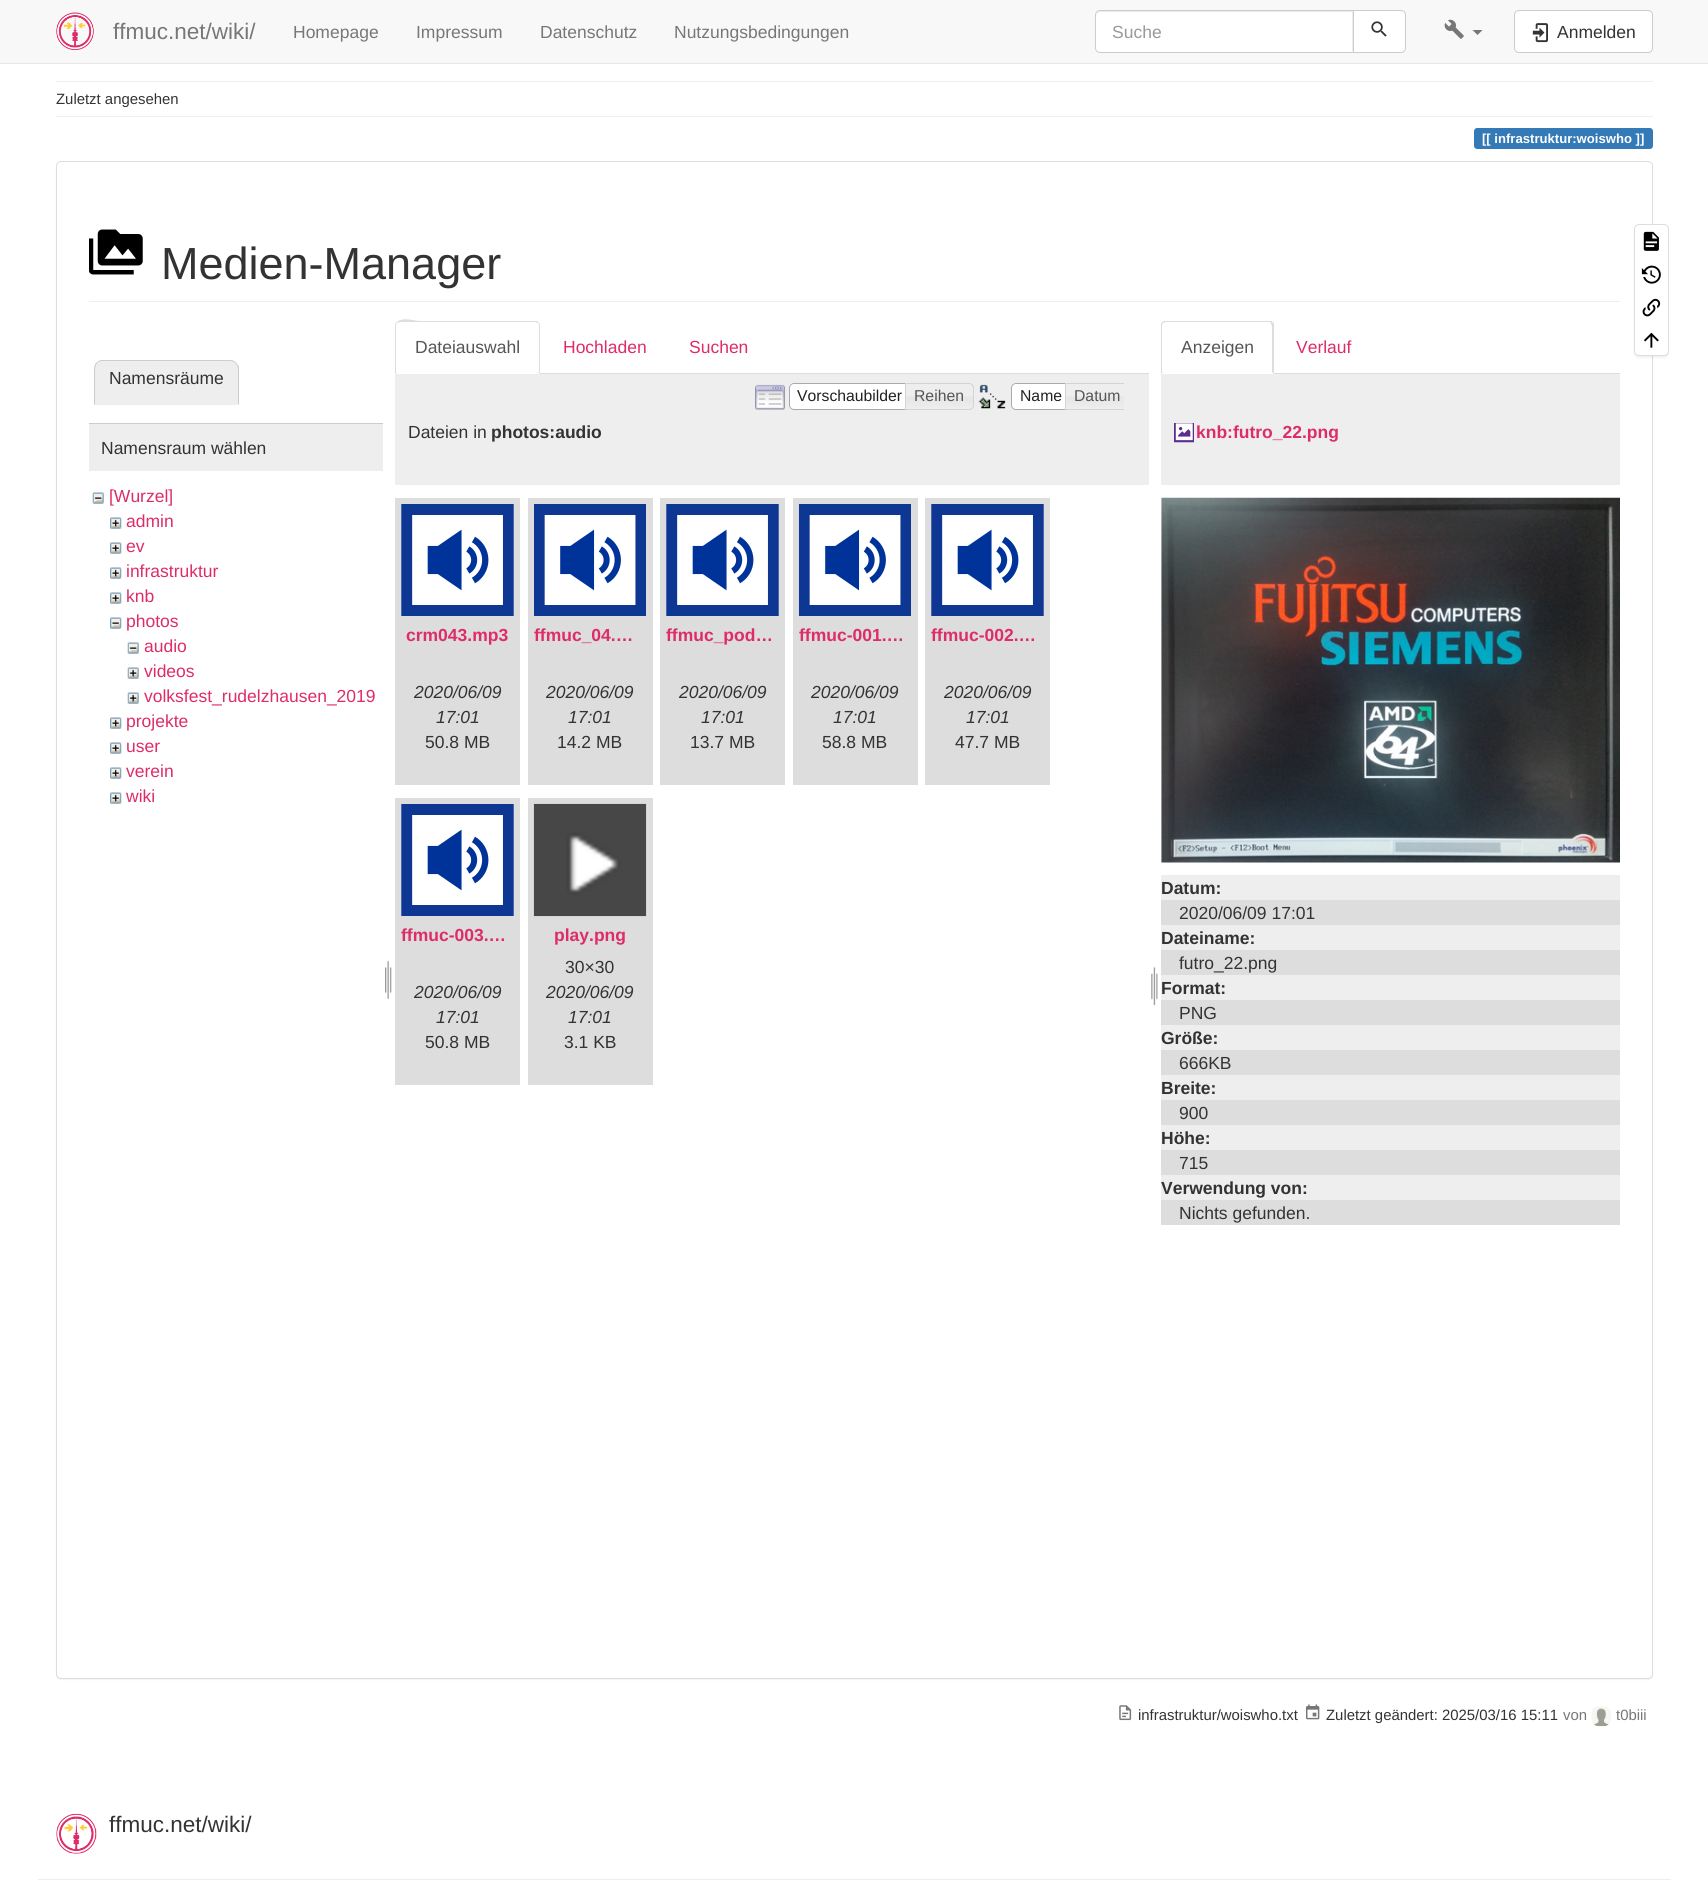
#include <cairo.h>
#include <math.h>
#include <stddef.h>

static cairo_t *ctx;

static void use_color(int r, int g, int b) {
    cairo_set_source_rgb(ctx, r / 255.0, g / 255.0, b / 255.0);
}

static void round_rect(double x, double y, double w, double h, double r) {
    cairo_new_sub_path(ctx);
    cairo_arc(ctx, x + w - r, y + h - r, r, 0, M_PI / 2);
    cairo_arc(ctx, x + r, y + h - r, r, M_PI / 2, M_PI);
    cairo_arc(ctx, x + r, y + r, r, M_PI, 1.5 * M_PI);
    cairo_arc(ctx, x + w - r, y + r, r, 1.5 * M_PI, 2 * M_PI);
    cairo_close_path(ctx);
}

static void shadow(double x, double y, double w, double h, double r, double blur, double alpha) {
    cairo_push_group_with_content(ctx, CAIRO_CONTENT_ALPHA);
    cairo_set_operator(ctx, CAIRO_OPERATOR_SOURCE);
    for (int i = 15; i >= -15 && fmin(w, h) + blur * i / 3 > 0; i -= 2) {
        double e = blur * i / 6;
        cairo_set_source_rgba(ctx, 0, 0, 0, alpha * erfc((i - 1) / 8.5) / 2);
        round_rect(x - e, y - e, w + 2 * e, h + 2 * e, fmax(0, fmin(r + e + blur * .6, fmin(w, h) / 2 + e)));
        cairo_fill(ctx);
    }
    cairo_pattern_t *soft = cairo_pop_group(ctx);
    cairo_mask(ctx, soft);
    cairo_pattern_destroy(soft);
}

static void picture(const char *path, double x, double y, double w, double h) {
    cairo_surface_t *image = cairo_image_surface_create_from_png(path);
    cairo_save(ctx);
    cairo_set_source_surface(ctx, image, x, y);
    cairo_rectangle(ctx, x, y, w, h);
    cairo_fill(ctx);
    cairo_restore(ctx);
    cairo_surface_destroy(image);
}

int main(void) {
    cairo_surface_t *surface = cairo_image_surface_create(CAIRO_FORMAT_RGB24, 1708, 1903);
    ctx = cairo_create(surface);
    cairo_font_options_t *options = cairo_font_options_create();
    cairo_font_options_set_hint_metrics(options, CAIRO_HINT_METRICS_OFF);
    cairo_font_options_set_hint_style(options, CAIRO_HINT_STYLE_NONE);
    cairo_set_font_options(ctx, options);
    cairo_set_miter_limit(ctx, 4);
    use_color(255, 255, 255);
    cairo_paint(ctx);
    use_color(248, 248, 248);
    cairo_rectangle(ctx, 0, 0, 1708, 63);
    cairo_fill(ctx);
    use_color(231, 231, 231);
    cairo_rectangle(ctx, 0, 63, 1708, 1);
    cairo_fill(ctx);
    picture("img1.png", 56, 12, 38, 38);
    cairo_select_font_face(ctx, "Liberation Sans", CAIRO_FONT_SLANT_NORMAL, CAIRO_FONT_WEIGHT_NORMAL);
    cairo_set_font_size(ctx, 22.5);
    use_color(119, 119, 119);
    cairo_move_to(ctx, 113, 39);
    cairo_show_text(ctx, "ffmuc.net/wiki/");
    cairo_set_font_size(ctx, 17.5);
    cairo_move_to(ctx, 293, 38);
    cairo_show_text(ctx, "Homepage");
    cairo_move_to(ctx, 416, 38);
    cairo_show_text(ctx, "Impressum");
    cairo_move_to(ctx, 540, 38);
    cairo_show_text(ctx, "Datenschutz");
    cairo_move_to(ctx, 674, 38);
    cairo_show_text(ctx, "Nutzungsbedingungen");
    use_color(255, 255, 255);
    cairo_new_path(ctx);
    cairo_move_to(ctx, 1100, 10);
    cairo_line_to(ctx, 1354, 10);
    cairo_line_to(ctx, 1354, 53);
    cairo_line_to(ctx, 1100, 53);
    cairo_curve_to(ctx, 1097, 53, 1095, 51, 1095, 48);
    cairo_line_to(ctx, 1095, 15);
    cairo_curve_to(ctx, 1095, 12, 1097, 10, 1100, 10);
    cairo_close_path(ctx);
    cairo_fill(ctx);
    use_color(236, 236, 236);
    cairo_new_path(ctx);
    cairo_move_to(ctx, 1100, 12);
    cairo_line_to(ctx, 1352, 12);
    cairo_line_to(ctx, 1352, 51);
    cairo_line_to(ctx, 1353, 51);
    cairo_line_to(ctx, 1353, 11);
    cairo_line_to(ctx, 1100, 11);
    cairo_curve_to(ctx, 1098, 11, 1096, 13, 1096, 15);
    cairo_line_to(ctx, 1096, 16);
    cairo_curve_to(ctx, 1096, 14, 1098, 12, 1100, 12);
    cairo_close_path(ctx);
    cairo_fill(ctx);
    cairo_new_path(ctx);
    cairo_move_to(ctx, 1100, 10.5);
    cairo_line_to(ctx, 1353.5, 10.5);
    cairo_line_to(ctx, 1353.5, 52.5);
    cairo_line_to(ctx, 1100, 52.5);
    cairo_curve_to(ctx, 1097.5, 52.5, 1095.5, 50.5, 1095.5, 48);
    cairo_line_to(ctx, 1095.5, 15);
    cairo_curve_to(ctx, 1095.5, 12.5, 1097.5, 10.5, 1100, 10.5);
    cairo_close_path(ctx);
    use_color(204, 204, 204);
    cairo_set_line_width(ctx, 1);
    cairo_stroke(ctx);
    use_color(153, 153, 153);
    cairo_move_to(ctx, 1112, 38);
    cairo_show_text(ctx, "Suche");
    use_color(255, 255, 255);
    cairo_new_path(ctx);
    cairo_move_to(ctx, 1353.5, 10.5);
    cairo_line_to(ctx, 1401, 10.5);
    cairo_curve_to(ctx, 1403.5, 10.5, 1405.5, 12.5, 1405.5, 15);
    cairo_line_to(ctx, 1405.5, 48);
    cairo_curve_to(ctx, 1405.5, 50.5, 1403.5, 52.5, 1401, 52.5);
    cairo_line_to(ctx, 1353.5, 52.5);
    cairo_close_path(ctx);
    cairo_fill_preserve(ctx);
    use_color(204, 204, 204);
    cairo_stroke(ctx);
    picture("img2.png", 1371, 21, 16, 16);
    picture("img3.png", 1444, 19, 20, 20);
    use_color(119, 119, 119);
    cairo_new_path(ctx);
    cairo_move_to(ctx, 1472.5, 30);
    cairo_line_to(ctx, 1482.5, 30);
    cairo_line_to(ctx, 1477.5, 35);
    cairo_close_path(ctx);
    cairo_fill(ctx);
    use_color(255, 255, 255);
    round_rect(1514.5, 10.5, 138, 42, 4.5);
    cairo_fill_preserve(ctx);
    use_color(204, 204, 204);
    cairo_stroke(ctx);
    picture("img4.png", 1532, 23, 16, 20);
    use_color(51, 51, 51);
    cairo_move_to(ctx, 1557, 38);
    cairo_show_text(ctx, "Anmelden");
    use_color(238, 238, 238);
    cairo_rectangle(ctx, 56, 81, 1597, 1);
    cairo_fill(ctx);
    cairo_set_font_size(ctx, 14.9);
    use_color(51, 51, 51);
    cairo_move_to(ctx, 56, 104);
    cairo_show_text(ctx, "Zuletzt angesehen");
    use_color(238, 238, 238);
    cairo_rectangle(ctx, 56, 116, 1597, 1);
    cairo_fill(ctx);
    use_color(51, 122, 183);
    cairo_new_path(ctx);
    cairo_move_to(ctx, 1477, 128);
    cairo_line_to(ctx, 1495, 128);
    cairo_line_to(ctx, 1495, 149);
    cairo_line_to(ctx, 1477, 149);
    cairo_curve_to(ctx, 1475.5, 149, 1474, 147.5, 1474, 146);
    cairo_line_to(ctx, 1474, 131);
    cairo_curve_to(ctx, 1474, 129.5, 1475.5, 128, 1477, 128);
    cairo_close_path(ctx);
    cairo_fill(ctx);
    cairo_rectangle(ctx, 1495, 128, 138, 21);
    cairo_fill(ctx);
    cairo_new_path(ctx);
    cairo_move_to(ctx, 1633, 128);
    cairo_line_to(ctx, 1650, 128);
    cairo_curve_to(ctx, 1651.5, 128, 1653, 129.5, 1653, 131);
    cairo_line_to(ctx, 1653, 146);
    cairo_curve_to(ctx, 1653, 147.5, 1651.5, 149, 1650, 149);
    cairo_line_to(ctx, 1633, 149);
    cairo_close_path(ctx);
    cairo_fill(ctx);
    cairo_select_font_face(ctx, "Liberation Sans", CAIRO_FONT_SLANT_NORMAL, CAIRO_FONT_WEIGHT_BOLD);
    cairo_set_font_size(ctx, 13.1);
    use_color(255, 255, 255);
    cairo_move_to(ctx, 1482, 143);
    cairo_show_text(ctx, "[[ infrastruktur:woiswho ]]");
    use_color(0, 0, 0);
    shadow(56, 163, 1597, 1517, 5, 0.5, 0.05);
    use_color(255, 255, 255);
    round_rect(56.5, 161.5, 1596, 1517, 4.5);
    cairo_fill_preserve(ctx);
    use_color(221, 221, 221);
    cairo_stroke(ctx);
    use_color(238, 238, 238);
    cairo_rectangle(ctx, 89, 301, 1531, 1);
    cairo_fill(ctx);
    picture("img5.png", 89, 229, 54, 46);
    cairo_select_font_face(ctx, "Liberation Sans", CAIRO_FONT_SLANT_NORMAL, CAIRO_FONT_WEIGHT_NORMAL);
    cairo_set_font_size(ctx, 45);
    use_color(51, 51, 51);
    cairo_move_to(ctx, 161, 279);
    cairo_show_text(ctx, "Medien-Manager");
    use_color(238, 238, 238);
    cairo_new_path(ctx);
    cairo_move_to(ctx, 103, 360);
    cairo_line_to(ctx, 230, 360);
    cairo_curve_to(ctx, 235, 360, 239, 364, 239, 369);
    cairo_line_to(ctx, 239, 405);
    cairo_line_to(ctx, 94, 405);
    cairo_line_to(ctx, 94, 369);
    cairo_curve_to(ctx, 94, 364, 98, 360, 103, 360);
    cairo_close_path(ctx);
    cairo_fill(ctx);
    use_color(204, 204, 204);
    cairo_new_path(ctx);
    cairo_move_to(ctx, 102, 360);
    cairo_curve_to(ctx, 100, 360, 98, 361, 96, 363);
    cairo_line_to(ctx, 97, 363);
    cairo_curve_to(ctx, 98, 362, 100, 361, 102, 361);
    cairo_line_to(ctx, 230, 361);
    cairo_curve_to(ctx, 232, 361, 234, 362, 235, 363);
    cairo_line_to(ctx, 236, 363);
    cairo_curve_to(ctx, 235, 361, 232, 360, 230, 360);
    cairo_close_path(ctx);
    cairo_fill(ctx);
    cairo_new_path(ctx);
    cairo_move_to(ctx, 239, 367);
    cairo_line_to(ctx, 239, 405);
    cairo_line_to(ctx, 238, 404);
    cairo_line_to(ctx, 238, 369);
    cairo_curve_to(ctx, 238, 367, 237, 365, 235, 363);
    cairo_line_to(ctx, 236, 363);
    cairo_curve_to(ctx, 237, 364, 238, 365, 239, 367);
    cairo_close_path(ctx);
    cairo_fill(ctx);
    use_color(238, 238, 238);
    cairo_new_path(ctx);
    cairo_move_to(ctx, 239, 405);
    cairo_line_to(ctx, 238, 404);
    cairo_line_to(ctx, 95, 404);
    cairo_line_to(ctx, 94, 405);
    cairo_close_path(ctx);
    cairo_fill(ctx);
    use_color(204, 204, 204);
    cairo_new_path(ctx);
    cairo_move_to(ctx, 96, 363);
    cairo_curve_to(ctx, 95, 364, 94, 367, 94, 369);
    cairo_line_to(ctx, 94, 405);
    cairo_line_to(ctx, 95, 404);
    cairo_line_to(ctx, 95, 369);
    cairo_curve_to(ctx, 95, 367, 96, 365, 97, 363);
    cairo_close_path(ctx);
    cairo_fill(ctx);
    cairo_set_font_size(ctx, 17.5);
    use_color(51, 51, 51);
    cairo_move_to(ctx, 109, 384);
    cairo_show_text(ctx, "Namensräume");
    use_color(238, 238, 238);
    cairo_rectangle(ctx, 89, 424, 294, 47);
    cairo_fill(ctx);
    use_color(204, 204, 204);
    cairo_rectangle(ctx, 89, 423, 294, 1);
    cairo_fill(ctx);
    use_color(51, 51, 51);
    cairo_move_to(ctx, 101, 454);
    cairo_show_text(ctx, "Namensraum wählen");
    picture("img6.png", 92, 492, 12, 12);
    use_color(222, 44, 104);
    cairo_move_to(ctx, 109, 502);
    cairo_show_text(ctx, "[Wurzel]");
    picture("img7.png", 110, 517, 12, 12);
    cairo_move_to(ctx, 126, 527);
    cairo_show_text(ctx, "admin");
    picture("img7.png", 110, 542, 12, 12);
    cairo_move_to(ctx, 126, 552);
    cairo_show_text(ctx, "ev");
    picture("img7.png", 110, 567, 12, 12);
    cairo_move_to(ctx, 126, 577);
    cairo_show_text(ctx, "infrastruktur");
    picture("img7.png", 110, 592, 12, 12);
    cairo_move_to(ctx, 126, 602);
    cairo_show_text(ctx, "knb");
    picture("img8.png", 110, 617, 12, 12);
    cairo_move_to(ctx, 126, 627);
    cairo_show_text(ctx, "photos");
    picture("img6.png", 127, 642, 12, 12);
    cairo_move_to(ctx, 144, 652);
    cairo_show_text(ctx, "audio");
    picture("img9.png", 127, 667, 12, 12);
    cairo_move_to(ctx, 144, 677);
    cairo_show_text(ctx, "videos");
    picture("img9.png", 127, 692, 12, 12);
    cairo_move_to(ctx, 144, 702);
    cairo_show_text(ctx, "volksfest_rudelzhausen_2019");
    picture("img7.png", 110, 717, 12, 12);
    cairo_move_to(ctx, 126, 727);
    cairo_show_text(ctx, "projekte");
    picture("img7.png", 110, 742, 12, 12);
    cairo_move_to(ctx, 126, 752);
    cairo_show_text(ctx, "user");
    picture("img7.png", 110, 767, 12, 12);
    cairo_move_to(ctx, 126, 777);
    cairo_show_text(ctx, "verein");
    picture("img7.png", 110, 792, 12, 12);
    cairo_move_to(ctx, 126, 802);
    cairo_show_text(ctx, "wiki");
    picture("img10.png", 385, 960, 7, 39);
    use_color(221, 221, 221);
    cairo_rectangle(ctx, 540, 373, 609, 1);
    cairo_fill(ctx);
    cairo_new_path(ctx);
    cairo_move_to(ctx, 400, 322);
    cairo_line_to(ctx, 397, 323);
    cairo_line_to(ctx, 396, 323);
    cairo_curve_to(ctx, 402, 316, 413, 321, 421, 321);
    cairo_line_to(ctx, 537, 321);
    cairo_line_to(ctx, 539, 323);
    cairo_line_to(ctx, 538, 323);
    cairo_line_to(ctx, 535, 322);
    cairo_close_path(ctx);
    cairo_fill(ctx);
    cairo_new_path(ctx);
    cairo_move_to(ctx, 540, 374);
    cairo_line_to(ctx, 540, 326);
    cairo_curve_to(ctx, 540, 325, 540, 323, 539, 323);
    cairo_line_to(ctx, 538, 323);
    cairo_curve_to(ctx, 539, 324, 539, 325, 539, 326);
    cairo_line_to(ctx, 539, 372);
    cairo_line_to(ctx, 538, 372);
    cairo_close_path(ctx);
    cairo_fill(ctx);
    cairo_new_path(ctx);
    cairo_move_to(ctx, 395, 374);
    cairo_line_to(ctx, 397, 372);
    cairo_line_to(ctx, 396, 372);
    cairo_line_to(ctx, 396, 326);
    cairo_curve_to(ctx, 396, 325, 396, 324, 397, 323);
    cairo_line_to(ctx, 396, 323);
    cairo_curve_to(ctx, 395, 323, 395, 325, 395, 326);
    cairo_close_path(ctx);
    cairo_fill(ctx);
    use_color(85, 85, 85);
    cairo_move_to(ctx, 415, 353);
    cairo_show_text(ctx, "Dateiauswahl");
    use_color(222, 44, 104);
    cairo_move_to(ctx, 563, 353);
    cairo_show_text(ctx, "Hochladen");
    cairo_move_to(ctx, 689, 353);
    cairo_show_text(ctx, "Suchen");
    use_color(238, 238, 238);
    cairo_rectangle(ctx, 395, 374, 754, 111);
    cairo_fill(ctx);
    picture("img11.png", 755, 384, 30, 26);
    use_color(255, 255, 255);
    cairo_new_path(ctx);
    cairo_move_to(ctx, 794, 383);
    cairo_line_to(ctx, 911, 383);
    cairo_line_to(ctx, 911, 410);
    cairo_line_to(ctx, 794, 410);
    cairo_curve_to(ctx, 791, 410, 789, 408, 789, 405);
    cairo_line_to(ctx, 789, 388);
    cairo_curve_to(ctx, 789, 385, 791, 383, 794, 383);
    cairo_close_path(ctx);
    cairo_fill(ctx);
    picture("img12.png", 789, 383, 4, 26);
    cairo_new_path(ctx);
    cairo_move_to(ctx, 794, 383.5);
    cairo_line_to(ctx, 910.5, 383.5);
    cairo_line_to(ctx, 910.5, 409.5);
    cairo_line_to(ctx, 794, 409.5);
    cairo_curve_to(ctx, 791.5, 409.5, 789.5, 407.5, 789.5, 405);
    cairo_line_to(ctx, 789.5, 388);
    cairo_curve_to(ctx, 789.5, 385.5, 791.5, 383.5, 794, 383.5);
    cairo_close_path(ctx);
    use_color(170, 170, 170);
    cairo_stroke(ctx);
    cairo_set_font_size(ctx, 15.75);
    use_color(33, 33, 33);
    cairo_move_to(ctx, 797, 401);
    cairo_show_text(ctx, "Vorschaubilder");
    picture("img13.png", 906, 383, 68, 27);
    cairo_new_path(ctx);
    cairo_move_to(ctx, 905.5, 383.5);
    cairo_line_to(ctx, 969, 383.5);
    cairo_curve_to(ctx, 971.5, 383.5, 973.5, 385.5, 973.5, 388);
    cairo_line_to(ctx, 973.5, 405);
    cairo_curve_to(ctx, 973.5, 407.5, 971.5, 409.5, 969, 409.5);
    cairo_line_to(ctx, 905.5, 409.5);
    cairo_close_path(ctx);
    use_color(211, 211, 211);
    cairo_stroke(ctx);
    use_color(85, 85, 85);
    cairo_move_to(ctx, 914, 401);
    cairo_show_text(ctx, "Reihen");
    picture("img14.png", 978, 384, 28, 25);
    use_color(255, 255, 255);
    cairo_new_path(ctx);
    cairo_move_to(ctx, 1016, 383);
    cairo_line_to(ctx, 1071, 383);
    cairo_line_to(ctx, 1071, 410);
    cairo_line_to(ctx, 1016, 410);
    cairo_curve_to(ctx, 1013, 410, 1011, 408, 1011, 405);
    cairo_line_to(ctx, 1011, 388);
    cairo_curve_to(ctx, 1011, 385, 1013, 383, 1016, 383);
    cairo_close_path(ctx);
    cairo_fill(ctx);
    picture("img15.png", 1012, 383, 3, 2);
    cairo_new_path(ctx);
    cairo_move_to(ctx, 1016, 383.5);
    cairo_line_to(ctx, 1070.5, 383.5);
    cairo_line_to(ctx, 1070.5, 409.5);
    cairo_line_to(ctx, 1016, 409.5);
    cairo_curve_to(ctx, 1013.5, 409.5, 1011.5, 407.5, 1011.5, 405);
    cairo_line_to(ctx, 1011.5, 388);
    cairo_curve_to(ctx, 1011.5, 385.5, 1013.5, 383.5, 1016, 383.5);
    cairo_close_path(ctx);
    use_color(170, 170, 170);
    cairo_stroke(ctx);
    use_color(33, 33, 33);
    cairo_move_to(ctx, 1020, 401);
    cairo_show_text(ctx, "Name");
    picture("img16.png", 1066, 384, 58, 25);
    cairo_save(ctx);
    cairo_rectangle(ctx, 745, 383, 379, 27);
    cairo_clip(ctx);
    cairo_new_path(ctx);
    cairo_move_to(ctx, 1065.5, 383.5);
    cairo_line_to(ctx, 1125, 383.5);
    cairo_curve_to(ctx, 1127.5, 383.5, 1129.5, 385.5, 1129.5, 388);
    cairo_line_to(ctx, 1129.5, 405);
    cairo_curve_to(ctx, 1129.5, 407.5, 1127.5, 409.5, 1125, 409.5);
    cairo_line_to(ctx, 1065.5, 409.5);
    cairo_close_path(ctx);
    use_color(211, 211, 211);
    cairo_stroke(ctx);
    cairo_restore(ctx);
    use_color(85, 85, 85);
    cairo_move_to(ctx, 1074, 401);
    cairo_show_text(ctx, "Datum");
    cairo_set_font_size(ctx, 17.5);
    use_color(51, 51, 51);
    cairo_move_to(ctx, 408, 438);
    cairo_show_text(ctx, "Dateien in");
    cairo_select_font_face(ctx, "Liberation Sans", CAIRO_FONT_SLANT_NORMAL, CAIRO_FONT_WEIGHT_BOLD);
    cairo_move_to(ctx, 491, 438);
    cairo_show_text(ctx, "photos:audio");
    use_color(221, 221, 221);
    cairo_rectangle(ctx, 395, 498, 125, 287);
    cairo_fill(ctx);
    picture("img17.png", 401, 504, 113, 112);
    use_color(222, 44, 104);
    cairo_move_to(ctx, 406, 641);
    cairo_show_text(ctx, "crm043.mp3");
    cairo_select_font_face(ctx, "Liberation Sans", CAIRO_FONT_SLANT_ITALIC, CAIRO_FONT_WEIGHT_NORMAL);
    use_color(51, 51, 51);
    cairo_move_to(ctx, 414, 698);
    cairo_show_text(ctx, "2020/06/09");
    cairo_move_to(ctx, 436, 723);
    cairo_show_text(ctx, "17:01");
    cairo_select_font_face(ctx, "Liberation Sans", CAIRO_FONT_SLANT_NORMAL, CAIRO_FONT_WEIGHT_NORMAL);
    cairo_move_to(ctx, 425, 748);
    cairo_show_text(ctx, "50.8 MB");
    use_color(221, 221, 221);
    cairo_rectangle(ctx, 528, 498, 125, 287);
    cairo_fill(ctx);
    picture("img18.png", 534, 504, 112, 112);
    cairo_select_font_face(ctx, "Liberation Sans", CAIRO_FONT_SLANT_NORMAL, CAIRO_FONT_WEIGHT_BOLD);
    use_color(222, 44, 104);
    cairo_move_to(ctx, 534, 641);
    cairo_show_text(ctx, "ffmuc_04.…");
    cairo_select_font_face(ctx, "Liberation Sans", CAIRO_FONT_SLANT_ITALIC, CAIRO_FONT_WEIGHT_NORMAL);
    use_color(51, 51, 51);
    cairo_move_to(ctx, 546, 698);
    cairo_show_text(ctx, "2020/06/09");
    cairo_move_to(ctx, 568, 723);
    cairo_show_text(ctx, "17:01");
    cairo_select_font_face(ctx, "Liberation Sans", CAIRO_FONT_SLANT_NORMAL, CAIRO_FONT_WEIGHT_NORMAL);
    cairo_move_to(ctx, 557, 748);
    cairo_show_text(ctx, "14.2 MB");
    use_color(221, 221, 221);
    cairo_rectangle(ctx, 660, 498, 125, 287);
    cairo_fill(ctx);
    picture("img17.png", 666, 504, 113, 112);
    cairo_select_font_face(ctx, "Liberation Sans", CAIRO_FONT_SLANT_NORMAL, CAIRO_FONT_WEIGHT_BOLD);
    use_color(222, 44, 104);
    cairo_move_to(ctx, 666, 641);
    cairo_show_text(ctx, "ffmuc_pod…");
    cairo_select_font_face(ctx, "Liberation Sans", CAIRO_FONT_SLANT_ITALIC, CAIRO_FONT_WEIGHT_NORMAL);
    use_color(51, 51, 51);
    cairo_move_to(ctx, 679, 698);
    cairo_show_text(ctx, "2020/06/09");
    cairo_move_to(ctx, 701, 723);
    cairo_show_text(ctx, "17:01");
    cairo_select_font_face(ctx, "Liberation Sans", CAIRO_FONT_SLANT_NORMAL, CAIRO_FONT_WEIGHT_NORMAL);
    cairo_move_to(ctx, 690, 748);
    cairo_show_text(ctx, "13.7 MB");
    use_color(221, 221, 221);
    cairo_rectangle(ctx, 793, 498, 125, 287);
    cairo_fill(ctx);
    picture("img18.png", 799, 504, 112, 112);
    cairo_select_font_face(ctx, "Liberation Sans", CAIRO_FONT_SLANT_NORMAL, CAIRO_FONT_WEIGHT_BOLD);
    use_color(222, 44, 104);
    cairo_move_to(ctx, 799, 641);
    cairo_show_text(ctx, "ffmuc-001.…");
    cairo_select_font_face(ctx, "Liberation Sans", CAIRO_FONT_SLANT_ITALIC, CAIRO_FONT_WEIGHT_NORMAL);
    use_color(51, 51, 51);
    cairo_move_to(ctx, 811, 698);
    cairo_show_text(ctx, "2020/06/09");
    cairo_move_to(ctx, 833, 723);
    cairo_show_text(ctx, "17:01");
    cairo_select_font_face(ctx, "Liberation Sans", CAIRO_FONT_SLANT_NORMAL, CAIRO_FONT_WEIGHT_NORMAL);
    cairo_move_to(ctx, 822, 748);
    cairo_show_text(ctx, "58.8 MB");
    use_color(221, 221, 221);
    cairo_rectangle(ctx, 925, 498, 125, 287);
    cairo_fill(ctx);
    picture("img17.png", 931, 504, 113, 112);
    cairo_select_font_face(ctx, "Liberation Sans", CAIRO_FONT_SLANT_NORMAL, CAIRO_FONT_WEIGHT_BOLD);
    use_color(222, 44, 104);
    cairo_move_to(ctx, 931, 641);
    cairo_show_text(ctx, "ffmuc-002.…");
    cairo_select_font_face(ctx, "Liberation Sans", CAIRO_FONT_SLANT_ITALIC, CAIRO_FONT_WEIGHT_NORMAL);
    use_color(51, 51, 51);
    cairo_move_to(ctx, 944, 698);
    cairo_show_text(ctx, "2020/06/09");
    cairo_move_to(ctx, 966, 723);
    cairo_show_text(ctx, "17:01");
    cairo_select_font_face(ctx, "Liberation Sans", CAIRO_FONT_SLANT_NORMAL, CAIRO_FONT_WEIGHT_NORMAL);
    cairo_move_to(ctx, 955, 748);
    cairo_show_text(ctx, "47.7 MB");
    use_color(221, 221, 221);
    cairo_rectangle(ctx, 395, 798, 125, 287);
    cairo_fill(ctx);
    picture("img17.png", 401, 804, 113, 112);
    cairo_select_font_face(ctx, "Liberation Sans", CAIRO_FONT_SLANT_NORMAL, CAIRO_FONT_WEIGHT_BOLD);
    use_color(222, 44, 104);
    cairo_move_to(ctx, 401, 941);
    cairo_show_text(ctx, "ffmuc-003.…");
    cairo_select_font_face(ctx, "Liberation Sans", CAIRO_FONT_SLANT_ITALIC, CAIRO_FONT_WEIGHT_NORMAL);
    use_color(51, 51, 51);
    cairo_move_to(ctx, 414, 998);
    cairo_show_text(ctx, "2020/06/09");
    cairo_move_to(ctx, 436, 1023);
    cairo_show_text(ctx, "17:01");
    cairo_select_font_face(ctx, "Liberation Sans", CAIRO_FONT_SLANT_NORMAL, CAIRO_FONT_WEIGHT_NORMAL);
    cairo_move_to(ctx, 425, 1048);
    cairo_show_text(ctx, "50.8 MB");
    use_color(221, 221, 221);
    cairo_rectangle(ctx, 528, 798, 125, 287);
    cairo_fill(ctx);
    picture("img19.png", 533, 803, 114, 114);
    cairo_select_font_face(ctx, "Liberation Sans", CAIRO_FONT_SLANT_NORMAL, CAIRO_FONT_WEIGHT_BOLD);
    use_color(222, 44, 104);
    cairo_move_to(ctx, 554, 941);
    cairo_show_text(ctx, "play.png");
    cairo_select_font_face(ctx, "Liberation Sans", CAIRO_FONT_SLANT_NORMAL, CAIRO_FONT_WEIGHT_NORMAL);
    use_color(51, 51, 51);
    cairo_move_to(ctx, 565, 973);
    cairo_show_text(ctx, "30×30");
    cairo_select_font_face(ctx, "Liberation Sans", CAIRO_FONT_SLANT_ITALIC, CAIRO_FONT_WEIGHT_NORMAL);
    cairo_move_to(ctx, 546, 998);
    cairo_show_text(ctx, "2020/06/09");
    cairo_move_to(ctx, 568, 1023);
    cairo_show_text(ctx, "17:01");
    cairo_select_font_face(ctx, "Liberation Sans", CAIRO_FONT_SLANT_NORMAL, CAIRO_FONT_WEIGHT_NORMAL);
    cairo_move_to(ctx, 564, 1048);
    cairo_show_text(ctx, "3.1 KB");
    picture("img20.png", 1151, 966, 7, 40);
    use_color(221, 221, 221);
    cairo_rectangle(ctx, 1274, 373, 346, 1);
    cairo_fill(ctx);
    cairo_new_path(ctx);
    cairo_move_to(ctx, 1166, 322);
    cairo_line_to(ctx, 1163, 323);
    cairo_line_to(ctx, 1162, 322);
    cairo_line_to(ctx, 1164, 321);
    cairo_line_to(ctx, 1271, 321);
    cairo_line_to(ctx, 1273, 322);
    cairo_line_to(ctx, 1271, 324);
    cairo_curve_to(ctx, 1271, 323, 1270, 322, 1269, 322);
    cairo_close_path(ctx);
    cairo_fill(ctx);
    cairo_new_path(ctx);
    cairo_move_to(ctx, 1273, 322);
    cairo_line_to(ctx, 1274, 324);
    cairo_line_to(ctx, 1274, 374);
    cairo_line_to(ctx, 1272, 372);
    cairo_line_to(ctx, 1272, 326);
    cairo_line_to(ctx, 1271, 324);
    cairo_close_path(ctx);
    cairo_fill(ctx);
    cairo_new_path(ctx);
    cairo_move_to(ctx, 1161, 374);
    cairo_line_to(ctx, 1161, 324);
    cairo_line_to(ctx, 1162, 322);
    cairo_line_to(ctx, 1163, 323);
    cairo_curve_to(ctx, 1162, 324, 1162, 325, 1162, 326);
    cairo_line_to(ctx, 1162, 372);
    cairo_line_to(ctx, 1163, 372);
    cairo_close_path(ctx);
    cairo_fill(ctx);
    use_color(85, 85, 85);
    cairo_move_to(ctx, 1181, 353);
    cairo_show_text(ctx, "Anzeigen");
    use_color(222, 44, 104);
    cairo_move_to(ctx, 1296, 353);
    cairo_show_text(ctx, "Verlauf");
    use_color(238, 238, 238);
    cairo_rectangle(ctx, 1161, 374, 459, 111);
    cairo_fill(ctx);
    picture("img21.png", 1174, 423, 20, 20);
    cairo_select_font_face(ctx, "Liberation Sans", CAIRO_FONT_SLANT_NORMAL, CAIRO_FONT_WEIGHT_BOLD);
    use_color(222, 44, 104);
    cairo_move_to(ctx, 1196, 438);
    cairo_show_text(ctx, "knb:futro_22.png");
    picture("img22.png", 1161, 497, 459, 366);
    use_color(238, 238, 238);
    cairo_rectangle(ctx, 1161, 875, 459, 25);
    cairo_fill(ctx);
    use_color(51, 51, 51);
    cairo_move_to(ctx, 1161, 894);
    cairo_show_text(ctx, "Datum:");
    use_color(221, 221, 221);
    cairo_rectangle(ctx, 1161, 900, 459, 25);
    cairo_fill(ctx);
    cairo_select_font_face(ctx, "Liberation Sans", CAIRO_FONT_SLANT_NORMAL, CAIRO_FONT_WEIGHT_NORMAL);
    use_color(51, 51, 51);
    cairo_move_to(ctx, 1179, 919);
    cairo_show_text(ctx, "2020/06/09 17:01");
    use_color(238, 238, 238);
    cairo_rectangle(ctx, 1161, 925, 459, 25);
    cairo_fill(ctx);
    cairo_select_font_face(ctx, "Liberation Sans", CAIRO_FONT_SLANT_NORMAL, CAIRO_FONT_WEIGHT_BOLD);
    use_color(51, 51, 51);
    cairo_move_to(ctx, 1161, 944);
    cairo_show_text(ctx, "Dateiname:");
    use_color(221, 221, 221);
    cairo_rectangle(ctx, 1161, 950, 459, 25);
    cairo_fill(ctx);
    cairo_select_font_face(ctx, "Liberation Sans", CAIRO_FONT_SLANT_NORMAL, CAIRO_FONT_WEIGHT_NORMAL);
    use_color(51, 51, 51);
    cairo_move_to(ctx, 1179, 969);
    cairo_show_text(ctx, "futro_22.png");
    use_color(238, 238, 238);
    cairo_rectangle(ctx, 1161, 975, 459, 25);
    cairo_fill(ctx);
    cairo_select_font_face(ctx, "Liberation Sans", CAIRO_FONT_SLANT_NORMAL, CAIRO_FONT_WEIGHT_BOLD);
    use_color(51, 51, 51);
    cairo_move_to(ctx, 1161, 994);
    cairo_show_text(ctx, "Format:");
    use_color(221, 221, 221);
    cairo_rectangle(ctx, 1161, 1000, 459, 25);
    cairo_fill(ctx);
    cairo_select_font_face(ctx, "Liberation Sans", CAIRO_FONT_SLANT_NORMAL, CAIRO_FONT_WEIGHT_NORMAL);
    use_color(51, 51, 51);
    cairo_move_to(ctx, 1179, 1019);
    cairo_show_text(ctx, "PNG");
    use_color(238, 238, 238);
    cairo_rectangle(ctx, 1161, 1025, 459, 25);
    cairo_fill(ctx);
    cairo_select_font_face(ctx, "Liberation Sans", CAIRO_FONT_SLANT_NORMAL, CAIRO_FONT_WEIGHT_BOLD);
    use_color(51, 51, 51);
    cairo_move_to(ctx, 1161, 1044);
    cairo_show_text(ctx, "Größe:");
    use_color(221, 221, 221);
    cairo_rectangle(ctx, 1161, 1050, 459, 25);
    cairo_fill(ctx);
    cairo_select_font_face(ctx, "Liberation Sans", CAIRO_FONT_SLANT_NORMAL, CAIRO_FONT_WEIGHT_NORMAL);
    use_color(51, 51, 51);
    cairo_move_to(ctx, 1179, 1069);
    cairo_show_text(ctx, "666KB");
    use_color(238, 238, 238);
    cairo_rectangle(ctx, 1161, 1075, 459, 25);
    cairo_fill(ctx);
    cairo_select_font_face(ctx, "Liberation Sans", CAIRO_FONT_SLANT_NORMAL, CAIRO_FONT_WEIGHT_BOLD);
    use_color(51, 51, 51);
    cairo_move_to(ctx, 1161, 1094);
    cairo_show_text(ctx, "Breite:");
    use_color(221, 221, 221);
    cairo_rectangle(ctx, 1161, 1100, 459, 25);
    cairo_fill(ctx);
    cairo_select_font_face(ctx, "Liberation Sans", CAIRO_FONT_SLANT_NORMAL, CAIRO_FONT_WEIGHT_NORMAL);
    use_color(51, 51, 51);
    cairo_move_to(ctx, 1179, 1119);
    cairo_show_text(ctx, "900");
    use_color(238, 238, 238);
    cairo_rectangle(ctx, 1161, 1125, 459, 25);
    cairo_fill(ctx);
    cairo_select_font_face(ctx, "Liberation Sans", CAIRO_FONT_SLANT_NORMAL, CAIRO_FONT_WEIGHT_BOLD);
    use_color(51, 51, 51);
    cairo_move_to(ctx, 1161, 1144);
    cairo_show_text(ctx, "Höhe:");
    use_color(221, 221, 221);
    cairo_rectangle(ctx, 1161, 1150, 459, 25);
    cairo_fill(ctx);
    cairo_select_font_face(ctx, "Liberation Sans", CAIRO_FONT_SLANT_NORMAL, CAIRO_FONT_WEIGHT_NORMAL);
    use_color(51, 51, 51);
    cairo_move_to(ctx, 1179, 1169);
    cairo_show_text(ctx, "715");
    use_color(238, 238, 238);
    cairo_rectangle(ctx, 1161, 1175, 459, 25);
    cairo_fill(ctx);
    cairo_select_font_face(ctx, "Liberation Sans", CAIRO_FONT_SLANT_NORMAL, CAIRO_FONT_WEIGHT_BOLD);
    use_color(51, 51, 51);
    cairo_move_to(ctx, 1161, 1194);
    cairo_show_text(ctx, "Verwendung von:");
    use_color(221, 221, 221);
    cairo_rectangle(ctx, 1161, 1200, 459, 25);
    cairo_fill(ctx);
    cairo_select_font_face(ctx, "Liberation Sans", CAIRO_FONT_SLANT_NORMAL, CAIRO_FONT_WEIGHT_NORMAL);
    use_color(51, 51, 51);
    cairo_move_to(ctx, 1179, 1219);
    cairo_show_text(ctx, "Nichts gefunden.");
    use_color(0, 0, 0);
    shadow(1634, 225, 35, 133, 5, 0.5, 0.05);
    use_color(255, 255, 255);
    round_rect(1634.5, 224.5, 34, 131, 4.5);
    cairo_fill_preserve(ctx);
    use_color(221, 221, 221);
    cairo_stroke(ctx);
    picture("img23.png", 1643, 231, 16, 20);
    picture("img24.png", 1641, 265, 20, 19);
    picture("img25.png", 1642, 298, 19, 19);
    picture("img26.png", 1644, 332, 15, 16);
    picture("img27.png", 1119, 1705, 13, 16);
    cairo_set_font_size(ctx, 14.9);
    use_color(51, 51, 51);
    cairo_move_to(ctx, 1138, 1720);
    cairo_show_text(ctx, "infrastruktur/woiswho.txt");
    picture("img28.png", 1306, 1704, 14, 16);
    cairo_move_to(ctx, 1326, 1720);
    cairo_show_text(ctx, "Zuletzt geändert: 2025/03/16 15:11");
    use_color(119, 119, 119);
    cairo_move_to(ctx, 1563, 1720);
    cairo_show_text(ctx, "von");
    picture("img29.png", 1591, 1706, 20, 21);
    cairo_move_to(ctx, 1616, 1720);
    cairo_show_text(ctx, "t0biii");
    picture("img30.png", 56, 1813, 41, 41);
    cairo_set_font_size(ctx, 22.5);
    use_color(51, 51, 51);
    cairo_move_to(ctx, 109, 1832);
    cairo_show_text(ctx, "ffmuc.net/wiki/");
    use_color(238, 238, 238);
    cairo_rectangle(ctx, 38, 1879, 1633, 1);
    cairo_fill(ctx);
    cairo_surface_write_to_png(surface, "result.png");
    cairo_font_options_destroy(options);
    cairo_destroy(ctx);
    cairo_surface_destroy(surface);
    return 0;
}
